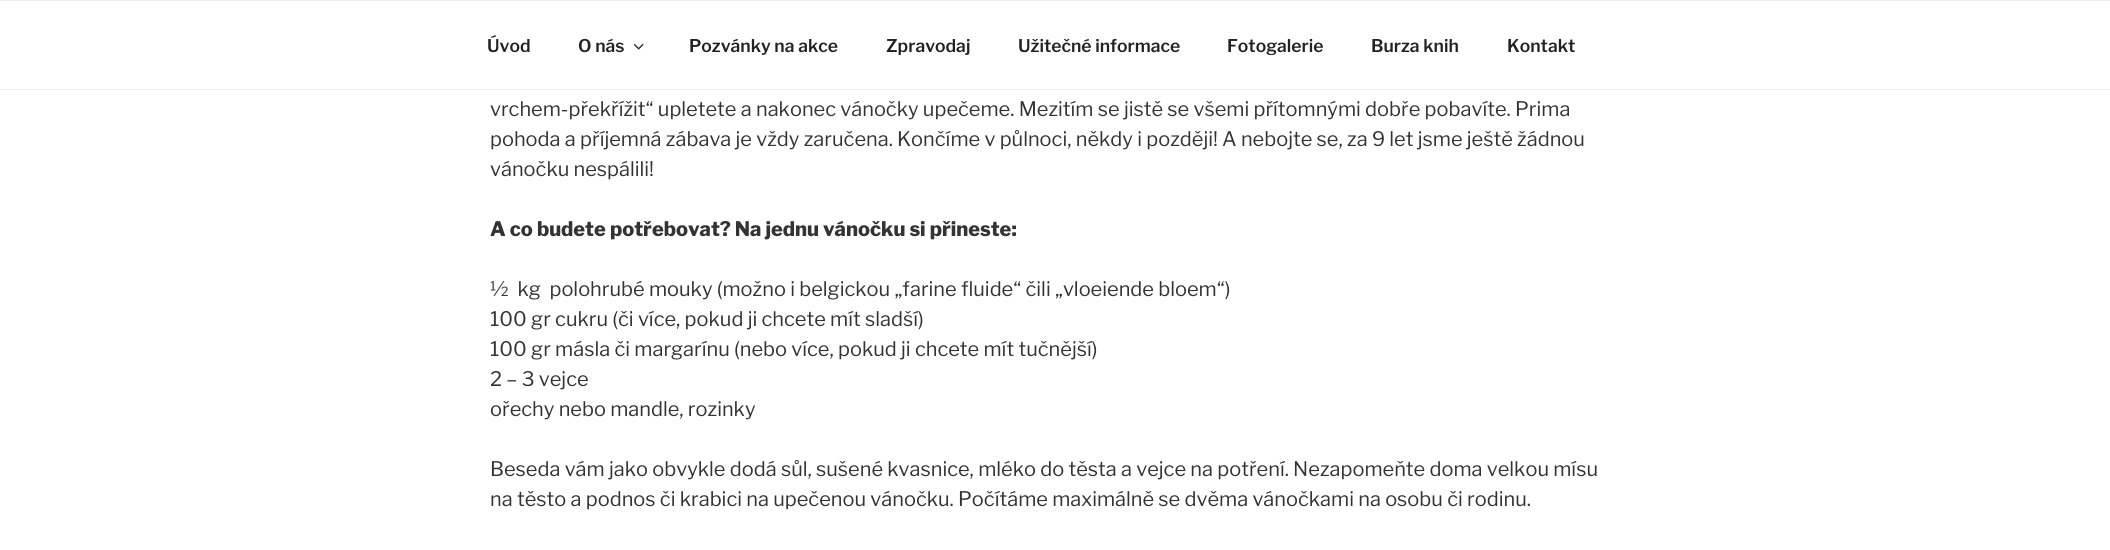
#include <cairo.h>
#include <math.h>
#include <stddef.h>

static cairo_t *ctx;

static void use_color(int r, int g, int b) {
    cairo_set_source_rgb(ctx, r / 255.0, g / 255.0, b / 255.0);
}

static void picture(const char *path, double x, double y, double w, double h) {
    cairo_surface_t *image = cairo_image_surface_create_from_png(path);
    cairo_save(ctx);
    cairo_set_source_surface(ctx, image, x, y);
    cairo_rectangle(ctx, x, y, w, h);
    cairo_fill(ctx);
    cairo_restore(ctx);
    cairo_surface_destroy(image);
}

int main(void) {
    cairo_surface_t *surface = cairo_image_surface_create(CAIRO_FORMAT_RGB24, 2110, 550);
    ctx = cairo_create(surface);
    cairo_font_options_t *options = cairo_font_options_create();
    cairo_font_options_set_hint_metrics(options, CAIRO_HINT_METRICS_OFF);
    cairo_font_options_set_hint_style(options, CAIRO_HINT_STYLE_NONE);
    cairo_set_font_options(ctx, options);
    cairo_set_miter_limit(ctx, 4);
    use_color(255, 255, 255);
    cairo_paint(ctx);
    use_color(238, 238, 238);
    cairo_rectangle(ctx, 0, 0, 2110, 1);
    cairo_fill(ctx);
    cairo_rectangle(ctx, 0, 89, 2110, 1);
    cairo_fill(ctx);
    cairo_select_font_face(ctx, "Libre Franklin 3 Thin", CAIRO_FONT_SLANT_NORMAL, CAIRO_FONT_WEIGHT_NORMAL);
    cairo_set_font_size(ctx, 17.5);
    use_color(34, 34, 34);
    cairo_move_to(ctx, 487, 52);
    cairo_show_text(ctx, "Úvod");
    cairo_move_to(ctx, 578, 52);
    cairo_show_text(ctx, "O nás");
    picture("img1.png", 633, 43, 11, 7);
    cairo_move_to(ctx, 689, 52);
    cairo_show_text(ctx, "Pozvánky na akce");
    cairo_move_to(ctx, 886, 52);
    cairo_show_text(ctx, "Zpravodaj");
    cairo_move_to(ctx, 1018, 52);
    cairo_show_text(ctx, "Užitečné informace");
    cairo_move_to(ctx, 1227, 52);
    cairo_show_text(ctx, "Fotogalerie");
    cairo_move_to(ctx, 1371, 52);
    cairo_show_text(ctx, "Burza knih");
    cairo_move_to(ctx, 1507, 52);
    cairo_show_text(ctx, "Kontakt");
    cairo_select_font_face(ctx, "Libre Franklin Thin", CAIRO_FONT_SLANT_NORMAL, CAIRO_FONT_WEIGHT_NORMAL);
    cairo_set_font_size(ctx, 20);
    use_color(51, 51, 51);
    cairo_move_to(ctx, 490, 116);
    cairo_show_text(ctx, "vrchem-překřížit“ upletete a nakonec vánočky upečeme. Mezitím se jistě se všemi přítomnými dobře pobavíte. Prima");
    cairo_move_to(ctx, 490, 146);
    cairo_show_text(ctx, "pohoda a příjemná zábava je vždy zaručena. Končíme v půlnoci, někdy i později! A nebojte se, za 9 let jsme ještě žádnou");
    cairo_move_to(ctx, 490, 176);
    cairo_show_text(ctx, "vánočku nespálili!");
    cairo_select_font_face(ctx, "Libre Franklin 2 Thin", CAIRO_FONT_SLANT_NORMAL, CAIRO_FONT_WEIGHT_NORMAL);
    cairo_move_to(ctx, 490, 236);
    cairo_show_text(ctx, "A co budete potřebovat? Na jednu vánočku si přineste:");
    cairo_select_font_face(ctx, "Libre Franklin Thin", CAIRO_FONT_SLANT_NORMAL, CAIRO_FONT_WEIGHT_NORMAL);
    cairo_move_to(ctx, 490, 296);
    cairo_show_text(ctx, "½  kg  polohrubé mouky (možno i belgickou „farine fluide“ čili „vloeiende bloem“)");
    cairo_move_to(ctx, 490, 326);
    cairo_show_text(ctx, "100 gr cukru (či více, pokud ji chcete mít sladší)");
    cairo_move_to(ctx, 490, 356);
    cairo_show_text(ctx, "100 gr másla či margarínu (nebo více, pokud ji chcete mít tučnější)");
    cairo_move_to(ctx, 490, 386);
    cairo_show_text(ctx, "2 – 3 vejce");
    cairo_move_to(ctx, 490, 416);
    cairo_show_text(ctx, "ořechy nebo mandle, rozinky");
    cairo_move_to(ctx, 490, 476);
    cairo_show_text(ctx, "Beseda vám jako obvykle dodá sůl, sušené kvasnice, mléko do těsta a vejce na potření. Nezapomeňte doma velkou mísu");
    cairo_move_to(ctx, 490, 506);
    cairo_show_text(ctx, "na těsto a podnos či krabici na upečenou vánočku. Počítáme maximálně se dvěma vánočkami na osobu či rodinu.");
    cairo_surface_write_to_png(surface, "result.png");
    cairo_font_options_destroy(options);
    cairo_destroy(ctx);
    cairo_surface_destroy(surface);
    return 0;
}
